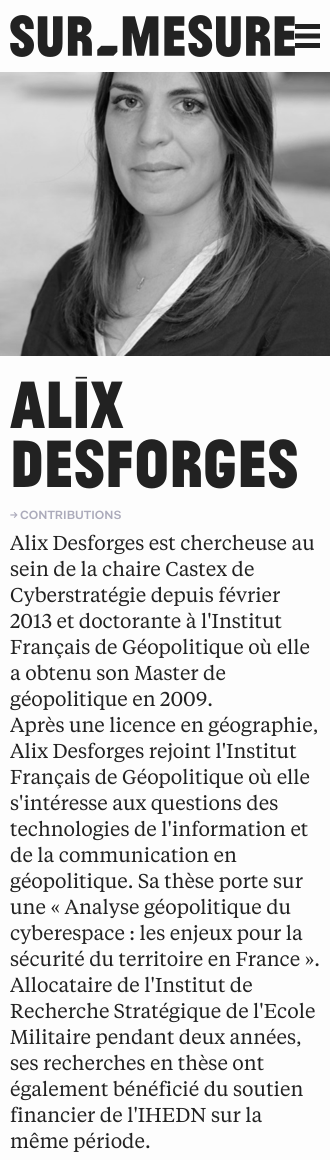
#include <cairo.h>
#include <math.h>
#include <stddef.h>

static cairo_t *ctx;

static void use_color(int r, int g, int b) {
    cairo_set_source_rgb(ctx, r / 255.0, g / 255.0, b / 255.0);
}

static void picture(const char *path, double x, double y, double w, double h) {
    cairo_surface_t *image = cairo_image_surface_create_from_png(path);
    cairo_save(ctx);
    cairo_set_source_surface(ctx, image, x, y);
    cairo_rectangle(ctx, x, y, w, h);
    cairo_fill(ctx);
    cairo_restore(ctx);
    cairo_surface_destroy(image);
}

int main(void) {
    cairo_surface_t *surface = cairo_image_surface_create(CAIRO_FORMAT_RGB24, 330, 1160);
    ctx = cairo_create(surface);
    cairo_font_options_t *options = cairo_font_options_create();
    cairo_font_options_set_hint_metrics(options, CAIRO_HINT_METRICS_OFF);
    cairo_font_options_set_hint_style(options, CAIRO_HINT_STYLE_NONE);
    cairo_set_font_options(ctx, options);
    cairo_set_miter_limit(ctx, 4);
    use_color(253, 253, 253);
    cairo_paint(ctx);
    picture("img1.png", 10, 15, 285, 42);
    use_color(34, 34, 34);
    cairo_rectangle(ctx, 295, 24, 25, 5);
    cairo_fill(ctx);
    cairo_new_path(ctx);
    cairo_move_to(ctx, 295, 36);
    cairo_line_to(ctx, 320, 36);
    cairo_set_line_width(ctx, 5);
    cairo_stroke(ctx);
    cairo_rectangle(ctx, 295, 43, 25, 5);
    cairo_fill(ctx);
    picture("img2.png", 0, 72, 330, 284);
    cairo_select_font_face(ctx, "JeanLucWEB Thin", CAIRO_FONT_SLANT_NORMAL, CAIRO_FONT_WEIGHT_NORMAL);
    cairo_set_font_size(ctx, 70);
    cairo_move_to(ctx, 10, 428);
    cairo_show_text(ctx, "ALIX");
    cairo_move_to(ctx, 10, 487);
    cairo_show_text(ctx, "DESFORGES");
    cairo_select_font_face(ctx, "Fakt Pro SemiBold", CAIRO_FONT_SLANT_NORMAL, CAIRO_FONT_WEIGHT_NORMAL);
    cairo_set_font_size(ctx, 12);
    use_color(172, 171, 187);
    cairo_move_to(ctx, 10, 518);
    cairo_show_text(ctx, "→");
    cairo_move_to(ctx, 20, 519);
    cairo_show_text(ctx, "CONTRIBUTIONS");
    cairo_select_font_face(ctx, "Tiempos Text", CAIRO_FONT_SLANT_NORMAL, CAIRO_FONT_WEIGHT_NORMAL);
    cairo_set_font_size(ctx, 20);
    use_color(34, 34, 34);
    cairo_move_to(ctx, 10, 550);
    cairo_show_text(ctx, "Alix Desforges est chercheuse au");
    cairo_move_to(ctx, 10, 576);
    cairo_show_text(ctx, "sein de la chaire Castex de");
    cairo_move_to(ctx, 10, 602);
    cairo_show_text(ctx, "Cyberstratégie depuis février");
    cairo_move_to(ctx, 10, 628);
    cairo_show_text(ctx, "2013 et doctorante à l'Institut");
    cairo_move_to(ctx, 10, 654);
    cairo_show_text(ctx, "Français de Géopolitique où elle");
    cairo_move_to(ctx, 10, 680);
    cairo_show_text(ctx, "a obtenu son Master de");
    cairo_move_to(ctx, 10, 706);
    cairo_show_text(ctx, "géopolitique en 2009.");
    cairo_move_to(ctx, 10, 732);
    cairo_show_text(ctx, "Après une licence en géographie,");
    cairo_move_to(ctx, 10, 758);
    cairo_show_text(ctx, "Alix Desforges rejoint l'Institut");
    cairo_move_to(ctx, 10, 784);
    cairo_show_text(ctx, "Français de Géopolitique où elle");
    cairo_move_to(ctx, 10, 810);
    cairo_show_text(ctx, "s'intéresse aux questions des");
    cairo_move_to(ctx, 10, 836);
    cairo_show_text(ctx, "technologies de l'information et");
    cairo_move_to(ctx, 10, 862);
    cairo_show_text(ctx, "de la communication en");
    cairo_move_to(ctx, 10, 888);
    cairo_show_text(ctx, "géopolitique. Sa thèse porte sur");
    cairo_move_to(ctx, 10, 914);
    cairo_show_text(ctx, "une « Analyse géopolitique du");
    cairo_move_to(ctx, 10, 940);
    cairo_show_text(ctx, "cyberespace : les enjeux pour la");
    cairo_move_to(ctx, 10, 966);
    cairo_show_text(ctx, "sécurité du territoire en France ».");
    cairo_move_to(ctx, 10, 992);
    cairo_show_text(ctx, "Allocataire de l'Institut de");
    cairo_move_to(ctx, 10, 1018);
    cairo_show_text(ctx, "Recherche Stratégique de l'Ecole");
    cairo_move_to(ctx, 10, 1044);
    cairo_show_text(ctx, "Militaire pendant deux années,");
    cairo_move_to(ctx, 10, 1070);
    cairo_show_text(ctx, "ses recherches en thèse ont");
    cairo_move_to(ctx, 10, 1096);
    cairo_show_text(ctx, "également bénéficié du soutien");
    cairo_move_to(ctx, 10, 1122);
    cairo_show_text(ctx, "financier de l'IHEDN sur la");
    cairo_move_to(ctx, 10, 1148);
    cairo_show_text(ctx, "même période.");
    cairo_surface_write_to_png(surface, "result.png");
    cairo_font_options_destroy(options);
    cairo_destroy(ctx);
    cairo_surface_destroy(surface);
    return 0;
}
